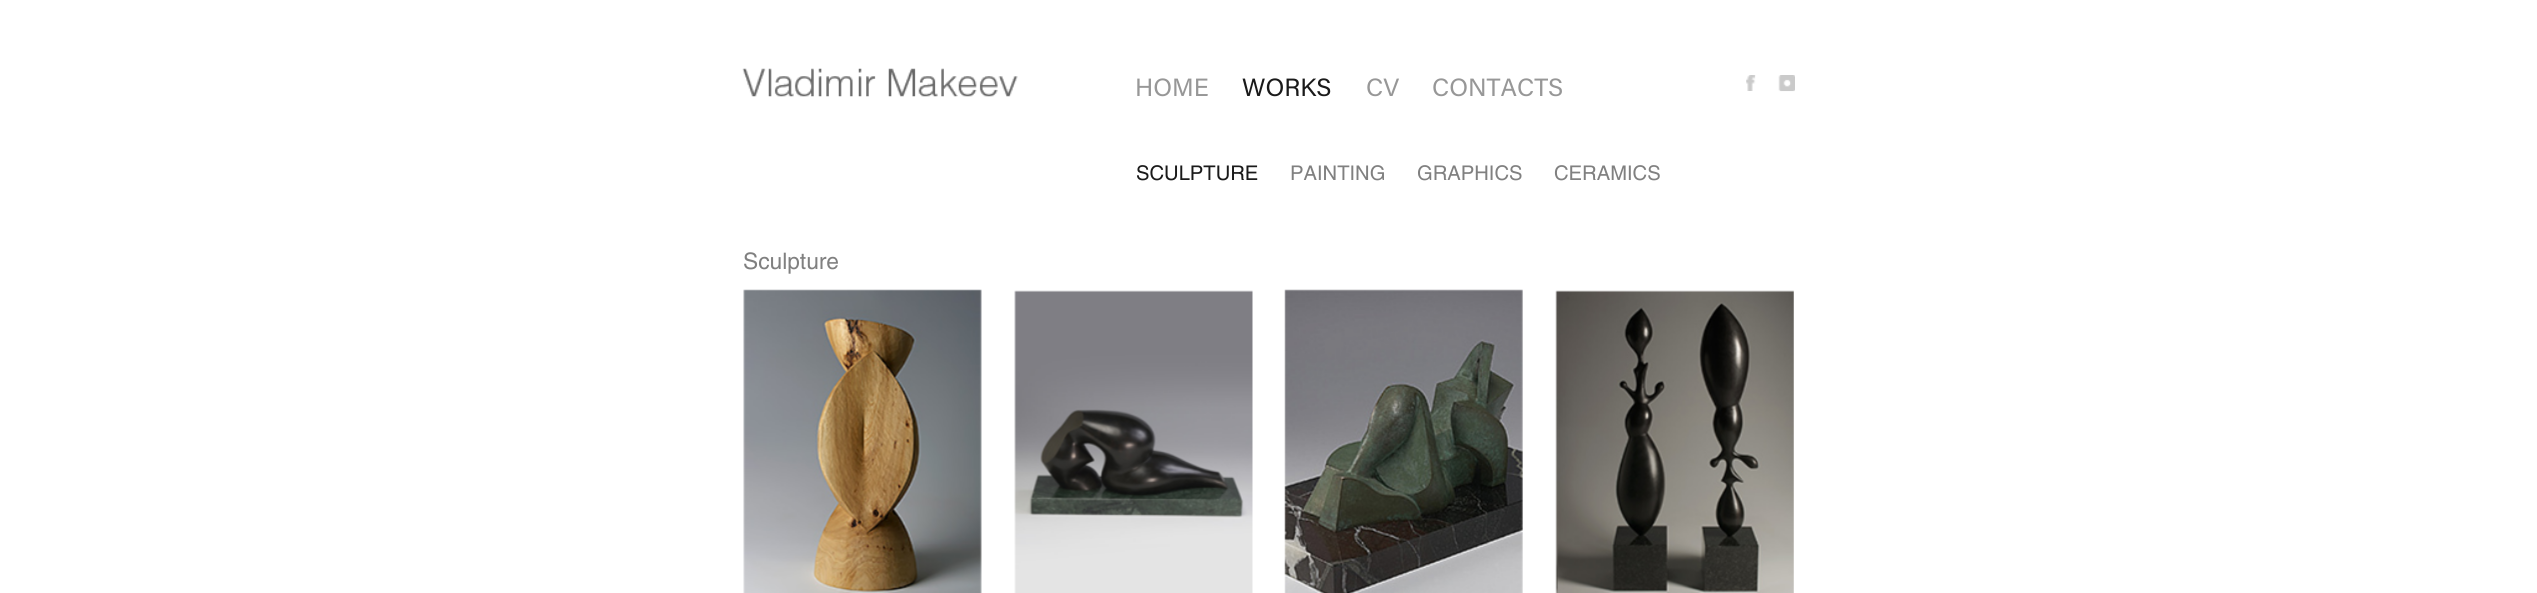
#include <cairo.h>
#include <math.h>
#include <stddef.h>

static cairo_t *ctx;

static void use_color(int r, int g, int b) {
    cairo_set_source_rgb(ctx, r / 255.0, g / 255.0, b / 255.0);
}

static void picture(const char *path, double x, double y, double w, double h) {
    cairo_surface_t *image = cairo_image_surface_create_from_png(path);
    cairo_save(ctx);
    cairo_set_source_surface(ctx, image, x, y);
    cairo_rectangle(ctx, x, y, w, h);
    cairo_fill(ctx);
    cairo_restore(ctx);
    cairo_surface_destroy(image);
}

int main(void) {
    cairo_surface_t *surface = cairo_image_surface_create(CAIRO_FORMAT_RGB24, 2537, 593);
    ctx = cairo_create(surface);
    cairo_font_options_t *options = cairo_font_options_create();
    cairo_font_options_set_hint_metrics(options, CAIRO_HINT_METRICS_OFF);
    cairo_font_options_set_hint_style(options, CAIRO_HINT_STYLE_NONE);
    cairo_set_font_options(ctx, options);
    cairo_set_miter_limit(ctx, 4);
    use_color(255, 255, 255);
    cairo_paint(ctx);
    picture("img1.png", 742, 68, 276, 29);
    cairo_select_font_face(ctx, "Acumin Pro", CAIRO_FONT_SLANT_NORMAL, CAIRO_FONT_WEIGHT_NORMAL);
    cairo_set_font_size(ctx, 25);
    use_color(151, 151, 151);
    cairo_move_to(ctx, 1135, 96);
    cairo_show_text(ctx, "HOME");
    use_color(26, 26, 26);
    cairo_move_to(ctx, 1242, 96);
    cairo_show_text(ctx, "WORKS");
    use_color(151, 151, 151);
    cairo_move_to(ctx, 1366, 96);
    cairo_show_text(ctx, "CV");
    cairo_move_to(ctx, 1432, 96);
    cairo_show_text(ctx, "CONTACTS");
    picture("img2.png", 1746, 75, 10, 16);
    picture("img3.png", 1778, 75, 17, 17);
    cairo_select_font_face(ctx, "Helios", CAIRO_FONT_SLANT_NORMAL, CAIRO_FONT_WEIGHT_NORMAL);
    cairo_set_font_size(ctx, 20);
    use_color(26, 26, 26);
    cairo_move_to(ctx, 1136, 180);
    cairo_show_text(ctx, "SCULPTURE");
    use_color(128, 128, 128);
    cairo_move_to(ctx, 1290, 180);
    cairo_show_text(ctx, "PAINTING");
    cairo_move_to(ctx, 1417, 180);
    cairo_show_text(ctx, "GRAPHICS");
    cairo_move_to(ctx, 1554, 180);
    cairo_show_text(ctx, "CERAMICS");
    cairo_set_font_size(ctx, 22.5);
    cairo_move_to(ctx, 743, 269);
    cairo_show_text(ctx, "Sculpture");
    picture("img4.png", 743, 289, 239, 304);
    picture("img5.png", 1014, 290, 239, 303);
    picture("img6.png", 1284, 289, 239, 304);
    picture("img7.png", 1555, 290, 239, 303);
    cairo_surface_write_to_png(surface, "result.png");
    cairo_font_options_destroy(options);
    cairo_destroy(ctx);
    cairo_surface_destroy(surface);
    return 0;
}
